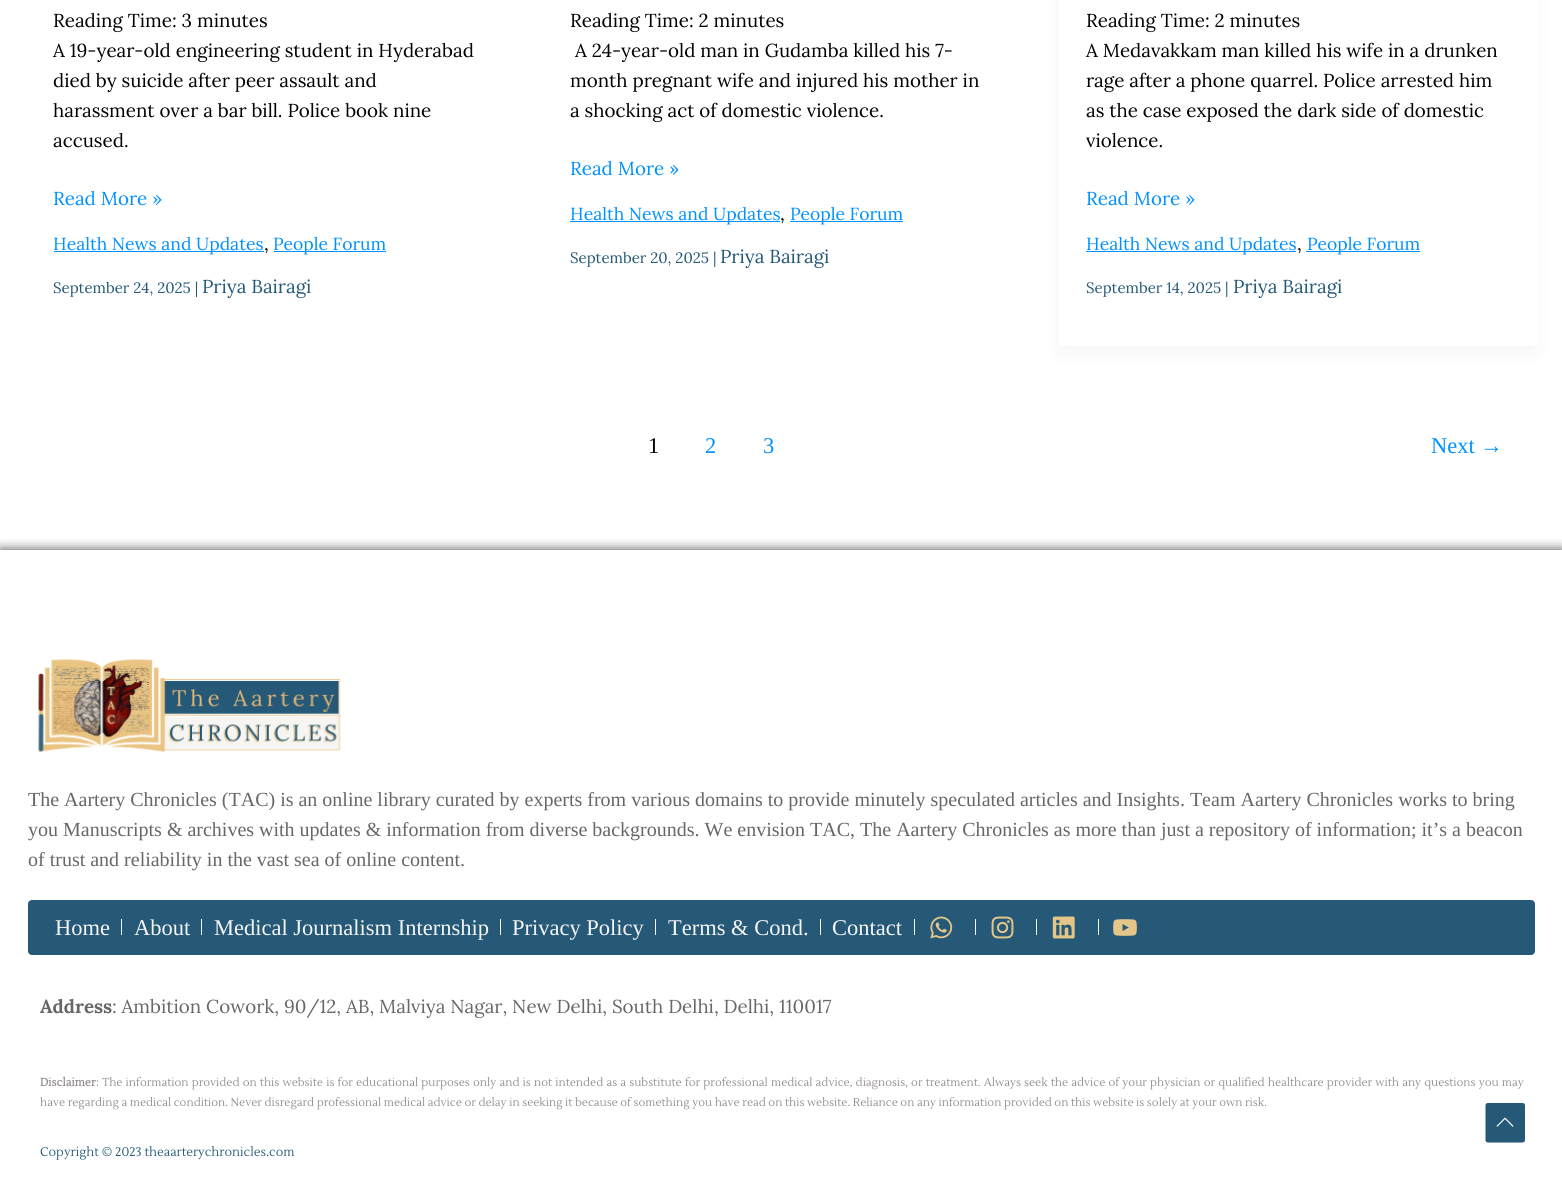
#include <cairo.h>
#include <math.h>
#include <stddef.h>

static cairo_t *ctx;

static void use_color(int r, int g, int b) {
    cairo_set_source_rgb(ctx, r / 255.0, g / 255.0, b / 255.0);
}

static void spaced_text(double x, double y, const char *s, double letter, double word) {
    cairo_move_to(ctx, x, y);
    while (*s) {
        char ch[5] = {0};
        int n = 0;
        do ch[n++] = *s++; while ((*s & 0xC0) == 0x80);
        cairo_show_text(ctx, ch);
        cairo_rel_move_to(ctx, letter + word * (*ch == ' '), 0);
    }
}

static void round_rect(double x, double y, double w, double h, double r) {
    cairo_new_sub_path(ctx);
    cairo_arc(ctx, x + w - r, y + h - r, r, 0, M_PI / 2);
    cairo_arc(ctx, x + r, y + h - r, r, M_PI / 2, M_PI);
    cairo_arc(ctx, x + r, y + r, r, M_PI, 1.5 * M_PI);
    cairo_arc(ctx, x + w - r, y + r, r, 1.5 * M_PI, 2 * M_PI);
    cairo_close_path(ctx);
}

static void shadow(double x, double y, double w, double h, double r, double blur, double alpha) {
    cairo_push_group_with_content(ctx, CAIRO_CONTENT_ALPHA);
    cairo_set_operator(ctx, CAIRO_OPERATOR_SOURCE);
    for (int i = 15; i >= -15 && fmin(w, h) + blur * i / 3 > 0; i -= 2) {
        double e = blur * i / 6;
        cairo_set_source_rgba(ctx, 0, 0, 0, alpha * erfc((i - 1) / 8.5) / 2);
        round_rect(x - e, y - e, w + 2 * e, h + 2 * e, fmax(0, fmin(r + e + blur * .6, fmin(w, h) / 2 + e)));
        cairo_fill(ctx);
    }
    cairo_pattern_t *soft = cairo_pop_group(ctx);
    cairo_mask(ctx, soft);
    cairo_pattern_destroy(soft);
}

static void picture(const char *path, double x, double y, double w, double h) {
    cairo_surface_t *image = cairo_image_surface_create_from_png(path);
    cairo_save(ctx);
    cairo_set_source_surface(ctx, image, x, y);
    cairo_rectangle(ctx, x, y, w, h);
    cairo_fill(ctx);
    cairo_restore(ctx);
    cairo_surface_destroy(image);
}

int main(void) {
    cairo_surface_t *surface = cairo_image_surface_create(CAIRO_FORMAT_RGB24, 1562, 1179);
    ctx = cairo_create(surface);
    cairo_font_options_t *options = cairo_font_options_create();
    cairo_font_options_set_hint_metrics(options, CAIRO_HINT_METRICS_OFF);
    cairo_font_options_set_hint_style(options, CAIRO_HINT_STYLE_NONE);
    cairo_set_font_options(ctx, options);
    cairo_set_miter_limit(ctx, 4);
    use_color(255, 255, 255);
    cairo_paint(ctx);
    cairo_select_font_face(ctx, "Lora", CAIRO_FONT_SLANT_NORMAL, CAIRO_FONT_WEIGHT_NORMAL);
    cairo_set_font_size(ctx, 18.75);
    use_color(0, 0, 0);
    cairo_move_to(ctx, 53, 27);
    cairo_show_text(ctx, "Reading Time: 3 minutes");
    cairo_move_to(ctx, 53, 57);
    cairo_show_text(ctx, "A 19-year-old engineering student in Hyderabad");
    cairo_move_to(ctx, 53, 87);
    cairo_show_text(ctx, "died by suicide after peer assault and");
    cairo_move_to(ctx, 53, 117);
    cairo_show_text(ctx, "harassment over a bar bill. Police book nine");
    cairo_move_to(ctx, 53, 147);
    cairo_show_text(ctx, "accused.");
    use_color(0, 145, 255);
    cairo_move_to(ctx, 53, 205);
    cairo_show_text(ctx, "Read More »");
    cairo_rectangle(ctx, 54, 251, 210, 1);
    cairo_fill(ctx);
    cairo_set_font_size(ctx, 17.5);
    cairo_move_to(ctx, 53, 250);
    cairo_show_text(ctx, "Health News and Updates");
    cairo_set_font_size(ctx, 18.75);
    use_color(0, 0, 0);
    cairo_move_to(ctx, 264, 250);
    cairo_show_text(ctx, ",");
    use_color(0, 145, 255);
    cairo_rectangle(ctx, 274, 251, 112, 1);
    cairo_fill(ctx);
    cairo_set_font_size(ctx, 17.5);
    cairo_move_to(ctx, 273, 250);
    cairo_show_text(ctx, "People Forum");
    cairo_set_font_size(ctx, 15);
    use_color(37, 89, 119);
    cairo_move_to(ctx, 53, 293);
    cairo_show_text(ctx, "September 24, 2025 |");
    cairo_set_font_size(ctx, 18.75);
    cairo_move_to(ctx, 202, 293);
    cairo_show_text(ctx, "Priya Bairagi");
    use_color(0, 0, 0);
    cairo_move_to(ctx, 570, 27);
    cairo_show_text(ctx, "Reading Time: 2 minutes");
    cairo_move_to(ctx, 575, 57);
    cairo_show_text(ctx, "A 24-year-old man in Gudamba killed his 7-");
    cairo_move_to(ctx, 570, 87);
    cairo_show_text(ctx, "month pregnant wife and injured his mother in");
    cairo_move_to(ctx, 570, 117);
    cairo_show_text(ctx, "a shocking act of domestic violence.");
    use_color(0, 145, 255);
    cairo_move_to(ctx, 570, 175);
    cairo_show_text(ctx, "Read More »");
    cairo_rectangle(ctx, 570, 221, 210, 1);
    cairo_fill(ctx);
    cairo_set_font_size(ctx, 17.5);
    cairo_move_to(ctx, 570, 220);
    cairo_show_text(ctx, "Health News and Updates");
    cairo_set_font_size(ctx, 18.75);
    use_color(0, 0, 0);
    cairo_move_to(ctx, 780, 220);
    cairo_show_text(ctx, ",");
    use_color(0, 145, 255);
    cairo_rectangle(ctx, 790, 221, 113, 1);
    cairo_fill(ctx);
    cairo_set_font_size(ctx, 17.5);
    cairo_move_to(ctx, 790, 220);
    cairo_show_text(ctx, "People Forum");
    cairo_set_font_size(ctx, 15);
    use_color(37, 89, 119);
    cairo_move_to(ctx, 570, 263);
    cairo_show_text(ctx, "September 20, 2025 |");
    cairo_set_font_size(ctx, 18.75);
    cairo_move_to(ctx, 720, 263);
    cairo_show_text(ctx, "Priya Bairagi");
    use_color(16, 24, 40);
    shadow(1061, -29, 474, 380, 0, 9.5, 0.05);
    use_color(255, 255, 255);
    cairo_rectangle(ctx, 1059, 0, 479, 346);
    cairo_fill(ctx);
    use_color(0, 0, 0);
    cairo_move_to(ctx, 1086, 27);
    cairo_show_text(ctx, "Reading Time: 2 minutes");
    cairo_move_to(ctx, 1086, 57);
    cairo_show_text(ctx, "A Medavakkam man killed his wife in a drunken");
    cairo_move_to(ctx, 1086, 87);
    cairo_show_text(ctx, "rage after a phone quarrel. Police arrested him");
    cairo_move_to(ctx, 1086, 117);
    cairo_show_text(ctx, "as the case exposed the dark side of domestic");
    cairo_move_to(ctx, 1086, 147);
    cairo_show_text(ctx, "violence.");
    use_color(0, 145, 255);
    cairo_move_to(ctx, 1086, 205);
    cairo_show_text(ctx, "Read More »");
    cairo_rectangle(ctx, 1086, 251, 210, 1);
    cairo_fill(ctx);
    cairo_set_font_size(ctx, 17.5);
    cairo_move_to(ctx, 1086, 250);
    cairo_show_text(ctx, "Health News and Updates");
    cairo_set_font_size(ctx, 18.75);
    use_color(0, 0, 0);
    cairo_move_to(ctx, 1297, 250);
    cairo_show_text(ctx, ",");
    use_color(0, 145, 255);
    cairo_rectangle(ctx, 1306, 251, 114, 1);
    cairo_fill(ctx);
    cairo_set_font_size(ctx, 17.5);
    cairo_move_to(ctx, 1307, 250);
    cairo_show_text(ctx, "People Forum");
    cairo_set_font_size(ctx, 15);
    use_color(37, 89, 119);
    cairo_move_to(ctx, 1086, 293);
    cairo_show_text(ctx, "September 14, 2025 |");
    cairo_set_font_size(ctx, 18.75);
    cairo_move_to(ctx, 1233, 293);
    cairo_show_text(ctx, "Priya Bairagi");
    cairo_select_font_face(ctx, "Liberation Serif", CAIRO_FONT_SLANT_NORMAL, CAIRO_FONT_WEIGHT_NORMAL);
    cairo_set_font_size(ctx, 22.5);
    use_color(0, 0, 0);
    cairo_move_to(ctx, 648, 453);
    cairo_show_text(ctx, "1");
    use_color(0, 145, 255);
    cairo_move_to(ctx, 705, 453);
    cairo_show_text(ctx, "2");
    cairo_move_to(ctx, 763, 453);
    cairo_show_text(ctx, "3");
    cairo_move_to(ctx, 1431, 453);
    cairo_show_text(ctx, "Next →");
    cairo_save(ctx);
    cairo_rectangle(ctx, 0, 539, 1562, 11);
    cairo_clip(ctx);
    use_color(0, 0, 0);
    shadow(0, 550, 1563, 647, 0, 6, 0.72);
    cairo_restore(ctx);
    picture("img1.png", 38, 659, 303, 94);
    cairo_set_font_size(ctx, 20);
    use_color(103, 103, 103);
    cairo_move_to(ctx, 28, 806);
    cairo_show_text(ctx, "The Aartery Chronicles (TAC) is an online library curated by experts from various domains to provide minutely speculated articles and Insights. Team Aartery Chronicles works to bring");
    cairo_move_to(ctx, 28, 836);
    cairo_show_text(ctx, "you Manuscripts & archives with updates & information from diverse backgrounds. We envision TAC, The Aartery Chronicles as more than just a repository of information; it’s a beacon");
    cairo_move_to(ctx, 28, 866);
    cairo_show_text(ctx, "of trust and reliability in the vast sea of online content.");
    use_color(37, 89, 119);
    round_rect(28, 900, 1507, 55, 4);
    cairo_fill(ctx);
    cairo_set_font_size(ctx, 22.5);
    use_color(245, 245, 245);
    cairo_move_to(ctx, 55, 935);
    cairo_show_text(ctx, "Home");
    cairo_rectangle(ctx, 121, 919, 1, 16);
    cairo_fill(ctx);
    cairo_move_to(ctx, 134, 935);
    cairo_show_text(ctx, "About");
    cairo_rectangle(ctx, 201, 919, 1, 16);
    cairo_fill(ctx);
    cairo_move_to(ctx, 214, 935);
    cairo_show_text(ctx, "Medical Journalism Internship");
    cairo_rectangle(ctx, 500, 919, 1, 16);
    cairo_fill(ctx);
    cairo_move_to(ctx, 512, 935);
    cairo_show_text(ctx, "Privacy Policy");
    cairo_rectangle(ctx, 655, 919, 1, 16);
    cairo_fill(ctx);
    cairo_move_to(ctx, 668, 935);
    cairo_show_text(ctx, "Terms & Cond.");
    cairo_rectangle(ctx, 820, 919, 1, 16);
    cairo_fill(ctx);
    cairo_move_to(ctx, 832, 935);
    cairo_show_text(ctx, "Contact");
    cairo_rectangle(ctx, 914, 919, 1, 16);
    cairo_fill(ctx);
    picture("img2.png", 930, 916, 23, 23);
    cairo_rectangle(ctx, 975, 919, 1, 16);
    cairo_fill(ctx);
    picture("img3.png", 991, 916, 23, 23);
    cairo_rectangle(ctx, 1036, 919, 1, 16);
    cairo_fill(ctx);
    picture("img4.png", 1052, 916, 23, 23);
    cairo_rectangle(ctx, 1098, 919, 1, 16);
    cairo_fill(ctx);
    picture("img5.png", 1113, 919, 24, 17);
    cairo_select_font_face(ctx, "Lora", CAIRO_FONT_SLANT_NORMAL, CAIRO_FONT_WEIGHT_BOLD);
    cairo_set_font_size(ctx, 18.75);
    use_color(103, 103, 103);
    cairo_move_to(ctx, 40, 1013);
    cairo_show_text(ctx, "Address");
    cairo_select_font_face(ctx, "Lora", CAIRO_FONT_SLANT_NORMAL, CAIRO_FONT_WEIGHT_NORMAL);
    cairo_move_to(ctx, 112, 1013);
    cairo_show_text(ctx, ": Ambition Cowork, 90/12, AB, Malviya Nagar, New Delhi, South Delhi, Delhi, 110017");
    cairo_select_font_face(ctx, "Lustria", CAIRO_FONT_SLANT_NORMAL, CAIRO_FONT_WEIGHT_BOLD);
    cairo_set_font_size(ctx, 11.25);
    use_color(146, 140, 140);
    cairo_move_to(ctx, 40, 1086);
    cairo_show_text(ctx, "Disclaimer");
    cairo_select_font_face(ctx, "Lustria", CAIRO_FONT_SLANT_NORMAL, CAIRO_FONT_WEIGHT_NORMAL);
    spaced_text(96, 1086, ": The information provided on this website is for educational purposes only and is not intended as a substitute for professional medical advice, diagnosis, or treatment. Always seek the advice of your physician or qualified healthcare provider with any questions you may", 0, 0.6);
    cairo_move_to(ctx, 40, 1106);
    cairo_show_text(ctx, "have regarding a medical condition. Never disregard professional medical advice or delay in seeking it because of something you have read on this website. Reliance on any information provided on this website is solely at your own risk.");
    cairo_set_font_size(ctx, 12.5);
    use_color(37, 89, 119);
    cairo_move_to(ctx, 40, 1156);
    cairo_show_text(ctx, "Copyright © 2023 theaarterychronicles.com");
    cairo_new_path(ctx);
    cairo_move_to(ctx, 1522.5, 1142.5);
    cairo_line_to(ctx, 1488, 1142.5);
    cairo_curve_to(ctx, 1486.5, 1142.5, 1485.5, 1141.5, 1485.5, 1140);
    cairo_line_to(ctx, 1485.5, 1105.5);
    cairo_curve_to(ctx, 1485.5, 1104, 1486.5, 1103, 1488, 1103);
    cairo_line_to(ctx, 1522.5, 1103);
    cairo_curve_to(ctx, 1524, 1103, 1525, 1104, 1525, 1105.5);
    cairo_line_to(ctx, 1525, 1140);
    cairo_curve_to(ctx, 1525, 1141.5, 1524, 1142.5, 1522.5, 1142.5);
    cairo_close_path(ctx);
    cairo_fill(ctx);
    picture("img6.png", 1496, 1117, 18, 10);
    cairo_surface_write_to_png(surface, "result.png");
    cairo_font_options_destroy(options);
    cairo_destroy(ctx);
    cairo_surface_destroy(surface);
    return 0;
}
